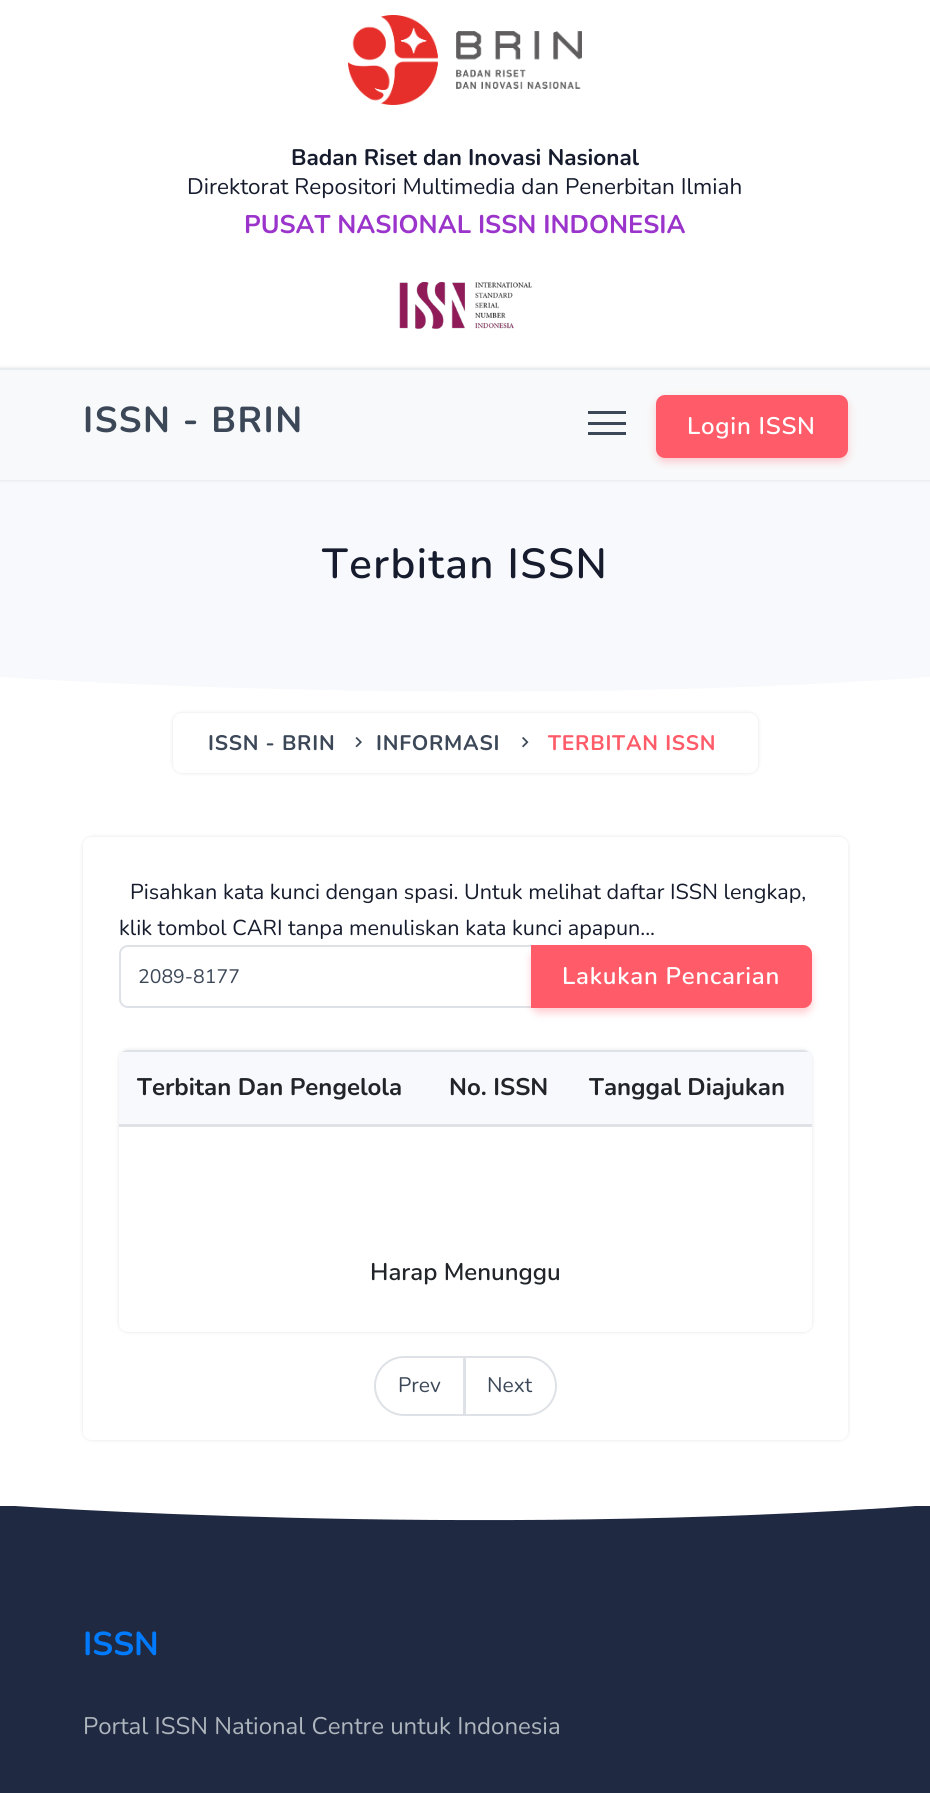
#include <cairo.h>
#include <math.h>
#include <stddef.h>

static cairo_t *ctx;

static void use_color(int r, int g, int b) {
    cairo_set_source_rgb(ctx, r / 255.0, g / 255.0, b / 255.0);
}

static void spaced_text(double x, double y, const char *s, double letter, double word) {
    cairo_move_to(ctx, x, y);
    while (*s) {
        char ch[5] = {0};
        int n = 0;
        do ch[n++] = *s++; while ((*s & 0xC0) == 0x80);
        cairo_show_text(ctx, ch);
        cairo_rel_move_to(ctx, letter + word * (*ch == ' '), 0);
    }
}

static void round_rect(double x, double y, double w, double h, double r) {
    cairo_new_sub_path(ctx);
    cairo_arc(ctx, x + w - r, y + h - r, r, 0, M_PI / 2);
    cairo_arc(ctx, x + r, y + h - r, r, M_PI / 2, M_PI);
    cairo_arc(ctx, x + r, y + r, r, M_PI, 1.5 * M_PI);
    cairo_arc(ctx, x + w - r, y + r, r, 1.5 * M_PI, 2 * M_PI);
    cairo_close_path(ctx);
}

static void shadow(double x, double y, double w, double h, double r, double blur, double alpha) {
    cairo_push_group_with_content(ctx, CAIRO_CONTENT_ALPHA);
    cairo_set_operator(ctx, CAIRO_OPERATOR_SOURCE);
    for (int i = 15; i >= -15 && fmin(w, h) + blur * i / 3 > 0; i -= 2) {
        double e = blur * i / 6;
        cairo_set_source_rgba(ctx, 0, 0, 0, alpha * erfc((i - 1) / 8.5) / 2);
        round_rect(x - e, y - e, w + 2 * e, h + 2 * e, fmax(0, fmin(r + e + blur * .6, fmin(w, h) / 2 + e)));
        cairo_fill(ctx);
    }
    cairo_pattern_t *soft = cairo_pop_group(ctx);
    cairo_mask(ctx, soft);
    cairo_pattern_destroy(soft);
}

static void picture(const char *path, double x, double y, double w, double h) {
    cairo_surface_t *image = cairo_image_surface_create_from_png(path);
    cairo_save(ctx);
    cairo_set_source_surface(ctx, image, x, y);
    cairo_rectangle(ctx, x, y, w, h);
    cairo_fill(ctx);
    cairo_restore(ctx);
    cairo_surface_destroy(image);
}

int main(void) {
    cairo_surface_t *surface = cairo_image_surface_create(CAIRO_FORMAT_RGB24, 930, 1793);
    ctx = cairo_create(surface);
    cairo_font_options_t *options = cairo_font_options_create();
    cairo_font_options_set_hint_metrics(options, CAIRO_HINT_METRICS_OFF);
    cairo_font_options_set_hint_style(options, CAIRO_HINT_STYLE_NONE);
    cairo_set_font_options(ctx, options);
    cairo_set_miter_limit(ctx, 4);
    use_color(255, 255, 255);
    cairo_paint(ctx);
    picture("img1.png", 348, 15, 234, 90);
    cairo_select_font_face(ctx, "Nunito", CAIRO_FONT_SLANT_NORMAL, CAIRO_FONT_WEIGHT_BOLD);
    cairo_set_font_size(ctx, 22.5);
    use_color(22, 28, 45);
    cairo_move_to(ctx, 291, 165);
    cairo_show_text(ctx, "Badan Riset dan Inovasi Nasional");
    cairo_select_font_face(ctx, "Nunito", CAIRO_FONT_SLANT_NORMAL, CAIRO_FONT_WEIGHT_NORMAL);
    cairo_move_to(ctx, 187, 194);
    cairo_show_text(ctx, "Direktorat Repositori Multimedia dan Penerbitan Ilmiah");
    cairo_select_font_face(ctx, "Nunito", CAIRO_FONT_SLANT_NORMAL, CAIRO_FONT_WEIGHT_BOLD);
    cairo_set_font_size(ctx, 25.5);
    use_color(155, 52, 203);
    cairo_move_to(ctx, 244, 233);
    cairo_show_text(ctx, "PUSAT NASIONAL ISSN INDONESIA");
    picture("img2.png", 399, 281, 133, 48);
    use_color(248, 249, 252);
    cairo_rectangle(ctx, 0, 480, 930, 212);
    cairo_fill(ctx);
    use_color(60, 72, 88);
    shadow(0, 368, 930, 112, 0, 2, 0.15);
    use_color(248, 249, 250);
    cairo_rectangle(ctx, 0, 370, 930, 110);
    cairo_fill(ctx);
    use_color(233, 236, 239);
    cairo_rectangle(ctx, 0, 368, 930, 2);
    cairo_fill(ctx);
    cairo_set_font_size(ctx, 36);
    use_color(60, 72, 88);
    spaced_text(83, 432, "ISSN - BRIN", 1.5, 0);
    cairo_rectangle(ctx, 588, 411, 38, 3);
    cairo_fill(ctx);
    cairo_rectangle(ctx, 588, 422, 38, 3);
    cairo_fill(ctx);
    cairo_rectangle(ctx, 588, 432, 38, 3);
    cairo_fill(ctx);
    use_color(255, 91, 105);
    shadow(656, 399, 192, 63, 9, 4, 0.3);
    use_color(255, 91, 105);
    round_rect(657, 396, 190, 61, 8);
    cairo_fill_preserve(ctx);
    cairo_stroke(ctx);
    cairo_select_font_face(ctx, "Nunito SemiBold", CAIRO_FONT_SLANT_NORMAL, CAIRO_FONT_WEIGHT_NORMAL);
    cairo_set_font_size(ctx, 24);
    use_color(255, 255, 255);
    spaced_text(687, 434, "Login ISSN", 0.75, 0);
    cairo_set_font_size(ctx, 42);
    use_color(22, 28, 45);
    spaced_text(322, 578, "Terbitan ISSN", 1.5, 0);
    use_color(60, 72, 88);
    shadow(173, 713, 585, 60, 9, 2, 0.15);
    use_color(255, 255, 255);
    round_rect(173, 713, 585, 60, 9);
    cairo_fill(ctx);
    cairo_select_font_face(ctx, "Nunito", CAIRO_FONT_SLANT_NORMAL, CAIRO_FONT_WEIGHT_BOLD);
    cairo_set_font_size(ctx, 21);
    use_color(60, 72, 88);
    spaced_text(208, 750, "ISSN - BRIN", 0.75, 0);
    picture("img3.png", 355, 737, 7, 11);
    spaced_text(376, 750, "INFORMASI", 0.75, 0);
    picture("img4.png", 522, 737, 7, 11);
    use_color(255, 91, 105);
    spaced_text(548, 750, "TERBITAN ISSN", 0.75, 0);
    cairo_save(ctx);
    cairo_rectangle(ctx, 0, 677, 930, 24);
    cairo_clip(ctx);
    use_color(255, 255, 255);
    cairo_new_path(ctx);
    cairo_move_to(ctx, -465, 708);
    cairo_line_to(ctx, 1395, 708);
    cairo_line_to(ctx, 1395, 677);
    cairo_line_to(ctx, 930, 677);
    cairo_curve_to(ctx, 467, 710, 0, 677, 0, 677);
    cairo_line_to(ctx, -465, 677);
    cairo_close_path(ctx);
    cairo_fill(ctx);
    cairo_restore(ctx);
    cairo_save(ctx);
    cairo_set_fill_rule(ctx, CAIRO_FILL_RULE_EVEN_ODD);
    cairo_new_path(ctx);
    cairo_move_to(ctx, 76, 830);
    cairo_line_to(ctx, 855, 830);
    cairo_line_to(ctx, 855, 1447);
    cairo_line_to(ctx, 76, 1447);
    cairo_close_path(ctx);
    cairo_move_to(ctx, 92, 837);
    cairo_line_to(ctx, 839, 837);
    cairo_curve_to(ctx, 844, 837, 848, 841, 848, 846);
    cairo_line_to(ctx, 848, 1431);
    cairo_curve_to(ctx, 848, 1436, 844, 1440, 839, 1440);
    cairo_line_to(ctx, 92, 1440);
    cairo_curve_to(ctx, 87, 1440, 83, 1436, 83, 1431);
    cairo_line_to(ctx, 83, 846);
    cairo_curve_to(ctx, 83, 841, 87, 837, 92, 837);
    cairo_close_path(ctx);
    cairo_clip(ctx);
    use_color(60, 72, 88);
    shadow(83, 837, 765, 603, 9, 2, 0.15);
    cairo_restore(ctx);
    cairo_select_font_face(ctx, "Nunito", CAIRO_FONT_SLANT_NORMAL, CAIRO_FONT_WEIGHT_NORMAL);
    cairo_set_font_size(ctx, 21.6);
    use_color(22, 28, 45);
    cairo_move_to(ctx, 130, 899);
    cairo_show_text(ctx, "Pisahkan kata kunci dengan spasi. Untuk melihat daftar ISSN lengkap,");
    cairo_move_to(ctx, 119, 935);
    cairo_show_text(ctx, "klik tombol CARI tanpa menuliskan kata kunci apapun...");
    cairo_new_path(ctx);
    cairo_move_to(ctx, 128, 946);
    cairo_line_to(ctx, 532, 946);
    cairo_line_to(ctx, 532, 1007);
    cairo_line_to(ctx, 128, 1007);
    cairo_curve_to(ctx, 123.5, 1007, 120, 1003.5, 120, 999);
    cairo_line_to(ctx, 120, 954);
    cairo_curve_to(ctx, 120, 949.5, 123.5, 946, 128, 946);
    cairo_close_path(ctx);
    use_color(222, 226, 230);
    cairo_stroke(ctx);
    cairo_set_font_size(ctx, 19.5);
    use_color(60, 72, 88);
    cairo_move_to(ctx, 138, 983);
    cairo_show_text(ctx, "2089-8177");
    use_color(255, 91, 105);
    shadow(531, 950, 281, 63, 9, 4, 0.3);
    use_color(255, 91, 105);
    cairo_new_path(ctx);
    cairo_move_to(ctx, 532, 946);
    cairo_line_to(ctx, 803, 946);
    cairo_curve_to(ctx, 807.5, 946, 811, 949.5, 811, 954);
    cairo_line_to(ctx, 811, 999);
    cairo_curve_to(ctx, 811, 1003.5, 807.5, 1007, 803, 1007);
    cairo_line_to(ctx, 532, 1007);
    cairo_close_path(ctx);
    cairo_fill_preserve(ctx);
    cairo_stroke(ctx);
    cairo_select_font_face(ctx, "Nunito SemiBold", CAIRO_FONT_SLANT_NORMAL, CAIRO_FONT_WEIGHT_NORMAL);
    cairo_set_font_size(ctx, 24);
    use_color(255, 255, 255);
    spaced_text(562, 984, "Lakukan Pencarian", 0.75, 0);
    use_color(60, 72, 88);
    shadow(119, 1050, 693, 282, 9, 2, 0.15);
    use_color(255, 255, 255);
    round_rect(119, 1050, 693, 282, 9);
    cairo_fill(ctx);
    cairo_save(ctx);
    round_rect(119, 1050, 693, 282, 9);
    cairo_clip(ctx);
    use_color(248, 249, 252);
    cairo_rectangle(ctx, 119, 1052, 693, 72);
    cairo_fill(ctx);
    use_color(222, 226, 230);
    cairo_rectangle(ctx, 570, 1050, 242, 2);
    cairo_fill(ctx);
    cairo_restore(ctx);
    use_color(222, 226, 230);
    cairo_rectangle(ctx, 431, 1050, 141, 2);
    cairo_fill(ctx);
    cairo_save(ctx);
    round_rect(119, 1050, 693, 282, 9);
    cairo_clip(ctx);
    cairo_rectangle(ctx, 119, 1050, 313, 2);
    cairo_fill(ctx);
    cairo_restore(ctx);
    cairo_select_font_face(ctx, "Nunito", CAIRO_FONT_SLANT_NORMAL, CAIRO_FONT_WEIGHT_BOLD);
    use_color(33, 37, 41);
    cairo_move_to(ctx, 137, 1095);
    cairo_show_text(ctx, "Terbitan Dan Pengelola");
    cairo_move_to(ctx, 449, 1095);
    cairo_show_text(ctx, "No. ISSN");
    use_color(222, 226, 230);
    cairo_rectangle(ctx, 119, 1124, 693, 3);
    cairo_fill(ctx);
    use_color(33, 37, 41);
    cairo_move_to(ctx, 589, 1095);
    cairo_show_text(ctx, "Tanggal Diajukan");
    cairo_select_font_face(ctx, "Nunito SemiBold", CAIRO_FONT_SLANT_NORMAL, CAIRO_FONT_WEIGHT_NORMAL);
    cairo_move_to(ctx, 370, 1280);
    cairo_show_text(ctx, "Harap Menunggu");
    cairo_new_path(ctx);
    cairo_move_to(ctx, 404, 1357);
    cairo_line_to(ctx, 464, 1357);
    cairo_line_to(ctx, 464, 1415);
    cairo_line_to(ctx, 404, 1415);
    cairo_curve_to(ctx, 388, 1415, 375, 1402, 375, 1386);
    cairo_curve_to(ctx, 375, 1370, 388, 1357, 404, 1357);
    cairo_close_path(ctx);
    use_color(222, 226, 230);
    cairo_stroke(ctx);
    cairo_select_font_face(ctx, "Nunito", CAIRO_FONT_SLANT_NORMAL, CAIRO_FONT_WEIGHT_NORMAL);
    cairo_set_font_size(ctx, 21);
    use_color(60, 72, 88);
    cairo_move_to(ctx, 398, 1392);
    cairo_show_text(ctx, "Prev");
    use_color(255, 255, 255);
    cairo_new_path(ctx);
    cairo_move_to(ctx, 465, 1357);
    cairo_line_to(ctx, 527, 1357);
    cairo_curve_to(ctx, 543, 1357, 556, 1370, 556, 1386);
    cairo_curve_to(ctx, 556, 1402, 543, 1415, 527, 1415);
    cairo_line_to(ctx, 465, 1415);
    cairo_close_path(ctx);
    cairo_fill_preserve(ctx);
    use_color(222, 226, 230);
    cairo_stroke(ctx);
    use_color(60, 72, 88);
    cairo_move_to(ctx, 487, 1392);
    cairo_show_text(ctx, "Next");
    cairo_save(ctx);
    cairo_rectangle(ctx, 0, 1506, 930, 26);
    cairo_clip(ctx);
    use_color(32, 41, 66);
    cairo_new_path(ctx);
    cairo_move_to(ctx, -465, 1536);
    cairo_line_to(ctx, 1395, 1536);
    cairo_line_to(ctx, 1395, 1505);
    cairo_line_to(ctx, 930, 1505);
    cairo_curve_to(ctx, 467, 1539, 0, 1505, 0, 1505);
    cairo_line_to(ctx, -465, 1505);
    cairo_close_path(ctx);
    cairo_fill(ctx);
    cairo_restore(ctx);
    use_color(32, 41, 66);
    cairo_rectangle(ctx, 0, 1532, 930, 261);
    cairo_fill(ctx);
    cairo_select_font_face(ctx, "Nunito", CAIRO_FONT_SLANT_NORMAL, CAIRO_FONT_WEIGHT_BOLD);
    cairo_set_font_size(ctx, 33);
    use_color(0, 123, 255);
    cairo_move_to(ctx, 83, 1655);
    cairo_show_text(ctx, "ISSN");
    cairo_select_font_face(ctx, "Nunito", CAIRO_FONT_SLANT_NORMAL, CAIRO_FONT_WEIGHT_NORMAL);
    cairo_set_font_size(ctx, 24);
    use_color(173, 181, 189);
    cairo_move_to(ctx, 83, 1734);
    cairo_show_text(ctx, "Portal ISSN National Centre untuk Indonesia");
    cairo_surface_write_to_png(surface, "result.png");
    cairo_font_options_destroy(options);
    cairo_destroy(ctx);
    cairo_surface_destroy(surface);
    return 0;
}
